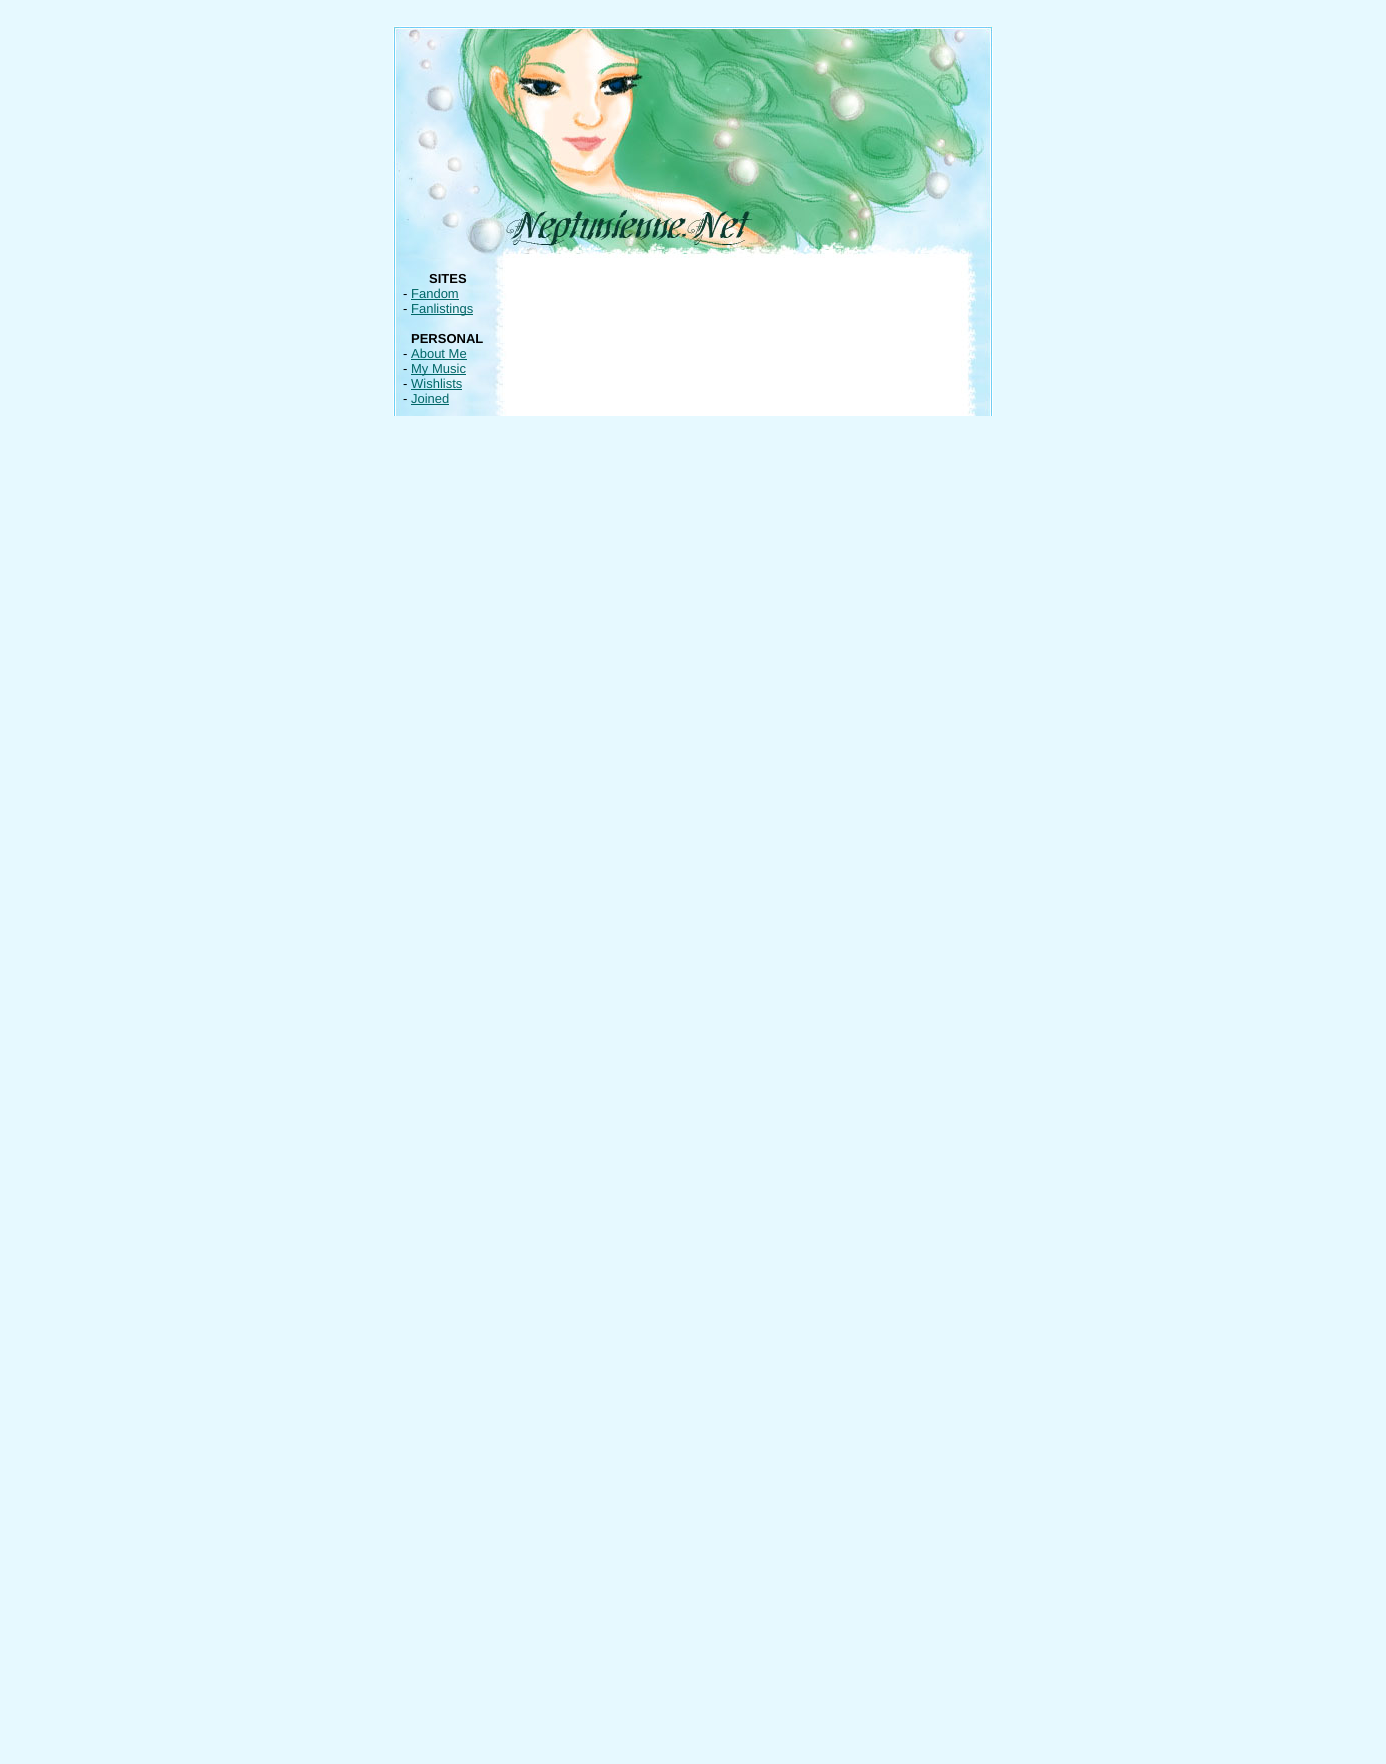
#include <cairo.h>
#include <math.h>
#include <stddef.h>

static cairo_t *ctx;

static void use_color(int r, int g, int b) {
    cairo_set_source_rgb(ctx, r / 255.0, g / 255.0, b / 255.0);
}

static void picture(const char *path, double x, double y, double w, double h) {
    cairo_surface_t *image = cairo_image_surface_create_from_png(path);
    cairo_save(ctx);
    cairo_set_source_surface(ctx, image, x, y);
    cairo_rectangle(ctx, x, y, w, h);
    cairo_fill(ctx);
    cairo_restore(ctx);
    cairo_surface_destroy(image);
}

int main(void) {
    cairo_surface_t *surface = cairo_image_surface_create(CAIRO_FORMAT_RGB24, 1386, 1764);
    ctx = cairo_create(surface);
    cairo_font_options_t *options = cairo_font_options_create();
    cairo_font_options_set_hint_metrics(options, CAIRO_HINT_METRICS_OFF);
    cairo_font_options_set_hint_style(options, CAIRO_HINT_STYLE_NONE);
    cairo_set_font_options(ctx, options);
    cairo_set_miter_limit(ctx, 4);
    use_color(230, 249, 255);
    cairo_paint(ctx);
    picture("img1.png", 393, 26, 600, 235);
    picture("img2.png", 393, 261, 600, 155);
    cairo_select_font_face(ctx, "Liberation Sans", CAIRO_FONT_SLANT_NORMAL, CAIRO_FONT_WEIGHT_BOLD);
    cairo_set_font_size(ctx, 13);
    use_color(0, 0, 0);
    cairo_move_to(ctx, 429, 283);
    cairo_show_text(ctx, "SITES");
    cairo_select_font_face(ctx, "Liberation Sans", CAIRO_FONT_SLANT_NORMAL, CAIRO_FONT_WEIGHT_NORMAL);
    cairo_move_to(ctx, 403, 298);
    cairo_show_text(ctx, "-");
    use_color(0, 102, 102);
    cairo_move_to(ctx, 411, 298);
    cairo_show_text(ctx, "Fandom");
    cairo_rectangle(ctx, 411, 299, 48, 1);
    cairo_fill(ctx);
    use_color(0, 0, 0);
    cairo_move_to(ctx, 403, 313);
    cairo_show_text(ctx, "-");
    use_color(0, 102, 102);
    cairo_rectangle(ctx, 411, 314, 62, 1);
    cairo_fill(ctx);
    cairo_move_to(ctx, 411, 313);
    cairo_show_text(ctx, "Fanlistings");
    cairo_select_font_face(ctx, "Liberation Sans", CAIRO_FONT_SLANT_NORMAL, CAIRO_FONT_WEIGHT_BOLD);
    use_color(0, 0, 0);
    cairo_move_to(ctx, 411, 343);
    cairo_show_text(ctx, "PERSONAL");
    cairo_select_font_face(ctx, "Liberation Sans", CAIRO_FONT_SLANT_NORMAL, CAIRO_FONT_WEIGHT_NORMAL);
    cairo_move_to(ctx, 403, 358);
    cairo_show_text(ctx, "-");
    use_color(0, 102, 102);
    cairo_move_to(ctx, 411, 358);
    cairo_show_text(ctx, "About Me");
    cairo_rectangle(ctx, 411, 359, 56, 1);
    cairo_fill(ctx);
    use_color(0, 0, 0);
    cairo_move_to(ctx, 403, 373);
    cairo_show_text(ctx, "-");
    use_color(0, 102, 102);
    cairo_rectangle(ctx, 411, 374, 55, 1);
    cairo_fill(ctx);
    cairo_move_to(ctx, 411, 373);
    cairo_show_text(ctx, "My Music");
    use_color(0, 0, 0);
    cairo_move_to(ctx, 403, 388);
    cairo_show_text(ctx, "-");
    use_color(0, 102, 102);
    cairo_move_to(ctx, 411, 388);
    cairo_show_text(ctx, "Wishlists");
    cairo_rectangle(ctx, 411, 389, 51, 1);
    cairo_fill(ctx);
    use_color(0, 0, 0);
    cairo_move_to(ctx, 403, 403);
    cairo_show_text(ctx, "-");
    use_color(0, 102, 102);
    cairo_move_to(ctx, 411, 403);
    cairo_show_text(ctx, "Joined");
    cairo_rectangle(ctx, 411, 404, 38, 1);
    cairo_fill(ctx);
    cairo_surface_write_to_png(surface, "result.png");
    cairo_font_options_destroy(options);
    cairo_destroy(ctx);
    cairo_surface_destroy(surface);
    return 0;
}
